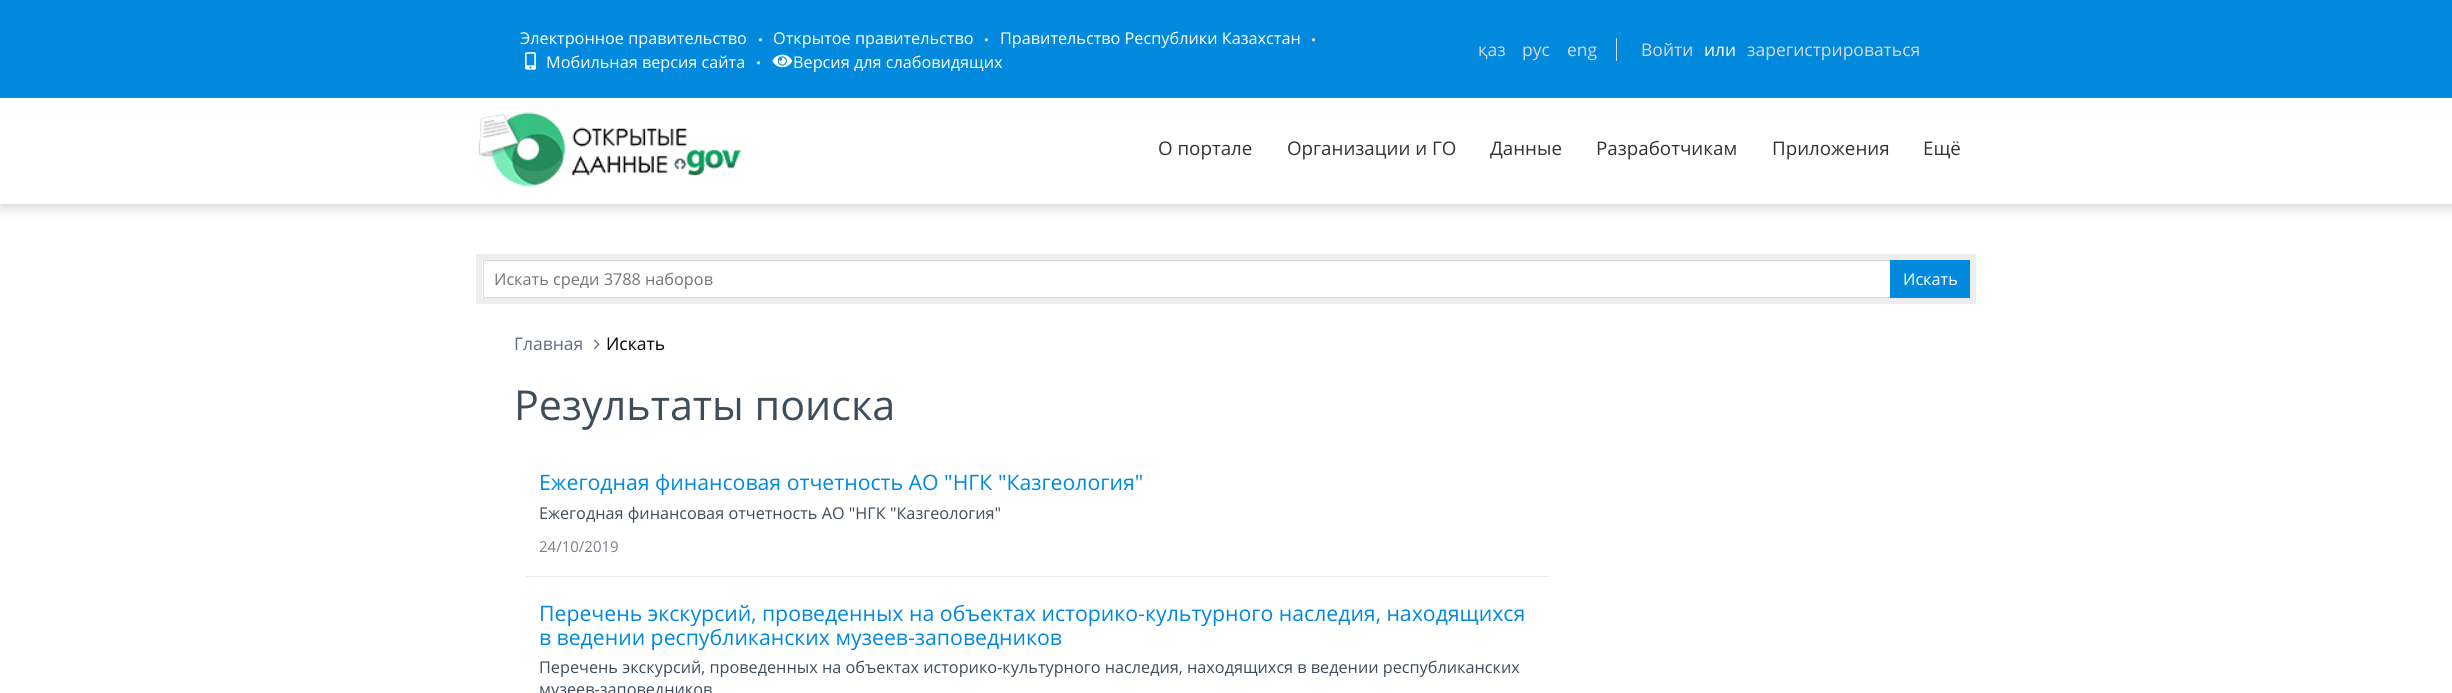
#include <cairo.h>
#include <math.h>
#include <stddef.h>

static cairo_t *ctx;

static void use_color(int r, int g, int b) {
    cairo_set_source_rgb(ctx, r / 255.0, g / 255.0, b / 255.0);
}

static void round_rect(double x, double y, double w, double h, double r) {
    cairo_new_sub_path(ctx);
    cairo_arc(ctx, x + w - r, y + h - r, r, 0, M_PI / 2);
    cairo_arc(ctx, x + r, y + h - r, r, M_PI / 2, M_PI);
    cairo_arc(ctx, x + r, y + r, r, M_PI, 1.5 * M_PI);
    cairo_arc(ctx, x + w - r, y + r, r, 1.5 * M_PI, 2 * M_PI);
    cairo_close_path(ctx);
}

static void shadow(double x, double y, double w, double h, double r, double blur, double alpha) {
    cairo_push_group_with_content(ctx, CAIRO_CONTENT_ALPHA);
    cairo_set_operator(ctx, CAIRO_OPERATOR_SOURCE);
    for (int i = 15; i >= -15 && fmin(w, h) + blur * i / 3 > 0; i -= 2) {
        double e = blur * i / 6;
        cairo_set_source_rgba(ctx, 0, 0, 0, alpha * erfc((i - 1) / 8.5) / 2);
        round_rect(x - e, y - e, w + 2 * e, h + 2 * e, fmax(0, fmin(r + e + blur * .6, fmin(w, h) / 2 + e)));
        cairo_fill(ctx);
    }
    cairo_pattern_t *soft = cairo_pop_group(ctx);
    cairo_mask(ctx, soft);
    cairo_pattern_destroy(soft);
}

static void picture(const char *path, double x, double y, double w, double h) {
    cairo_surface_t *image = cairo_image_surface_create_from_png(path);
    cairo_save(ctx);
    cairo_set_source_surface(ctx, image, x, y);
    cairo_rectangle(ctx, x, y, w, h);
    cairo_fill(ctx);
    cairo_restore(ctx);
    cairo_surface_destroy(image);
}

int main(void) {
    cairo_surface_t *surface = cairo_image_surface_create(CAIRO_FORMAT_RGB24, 2452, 693);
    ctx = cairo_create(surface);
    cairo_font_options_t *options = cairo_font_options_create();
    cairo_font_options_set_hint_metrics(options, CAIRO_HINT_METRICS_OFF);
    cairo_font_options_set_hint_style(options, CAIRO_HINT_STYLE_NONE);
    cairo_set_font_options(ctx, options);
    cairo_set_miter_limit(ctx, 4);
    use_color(255, 255, 255);
    cairo_paint(ctx);
    use_color(0, 0, 0);
    shadow(0, 5, 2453, 204, 0, 6, 0.15);
    use_color(255, 255, 255);
    cairo_rectangle(ctx, 0, 98, 2452, 106);
    cairo_fill(ctx);
    use_color(0, 137, 221);
    cairo_rectangle(ctx, 0, 0, 2452, 98);
    cairo_fill(ctx);
    cairo_select_font_face(ctx, "Open Sans", CAIRO_FONT_SLANT_NORMAL, CAIRO_FONT_WEIGHT_NORMAL);
    cairo_set_font_size(ctx, 16.25);
    use_color(255, 255, 255);
    cairo_move_to(ctx, 520, 44);
    cairo_show_text(ctx, "Электронное правительство");
    cairo_select_font_face(ctx, "Liberation Sans", CAIRO_FONT_SLANT_NORMAL, CAIRO_FONT_WEIGHT_NORMAL);
    cairo_set_font_size(ctx, 8);
    use_color(216, 216, 216);
    cairo_move_to(ctx, 758, 42);
    cairo_show_text(ctx, "●");
    cairo_select_font_face(ctx, "Open Sans", CAIRO_FONT_SLANT_NORMAL, CAIRO_FONT_WEIGHT_NORMAL);
    cairo_set_font_size(ctx, 16.25);
    use_color(255, 255, 255);
    cairo_move_to(ctx, 773, 44);
    cairo_show_text(ctx, "Открытое правительство");
    cairo_select_font_face(ctx, "Liberation Sans", CAIRO_FONT_SLANT_NORMAL, CAIRO_FONT_WEIGHT_NORMAL);
    cairo_set_font_size(ctx, 8);
    use_color(216, 216, 216);
    cairo_move_to(ctx, 984, 42);
    cairo_show_text(ctx, "●");
    cairo_select_font_face(ctx, "Open Sans", CAIRO_FONT_SLANT_NORMAL, CAIRO_FONT_WEIGHT_NORMAL);
    cairo_set_font_size(ctx, 16.25);
    use_color(255, 255, 255);
    cairo_move_to(ctx, 1000, 44);
    cairo_show_text(ctx, "Правительство Республики Казахстан");
    cairo_select_font_face(ctx, "Liberation Sans", CAIRO_FONT_SLANT_NORMAL, CAIRO_FONT_WEIGHT_NORMAL);
    cairo_set_font_size(ctx, 8);
    use_color(216, 216, 216);
    cairo_move_to(ctx, 1311, 42);
    cairo_show_text(ctx, "●");
    picture("img1.png", 525, 52, 11, 18);
    cairo_select_font_face(ctx, "Open Sans", CAIRO_FONT_SLANT_NORMAL, CAIRO_FONT_WEIGHT_NORMAL);
    cairo_set_font_size(ctx, 16.25);
    use_color(255, 255, 255);
    cairo_move_to(ctx, 546, 68);
    cairo_show_text(ctx, "Мобильная версия сайта");
    cairo_select_font_face(ctx, "Liberation Sans", CAIRO_FONT_SLANT_NORMAL, CAIRO_FONT_WEIGHT_NORMAL);
    cairo_set_font_size(ctx, 8);
    use_color(216, 216, 216);
    cairo_move_to(ctx, 756, 65);
    cairo_show_text(ctx, "●");
    picture("img2.png", 772, 54, 21, 14);
    cairo_select_font_face(ctx, "Open Sans", CAIRO_FONT_SLANT_NORMAL, CAIRO_FONT_WEIGHT_NORMAL);
    cairo_set_font_size(ctx, 16.25);
    use_color(255, 255, 255);
    cairo_move_to(ctx, 793, 68);
    cairo_show_text(ctx, "Версия для слабовидящих");
    use_color(216, 216, 216);
    cairo_rectangle(ctx, 1616, 38, 1, 23);
    cairo_fill(ctx);
    cairo_set_font_size(ctx, 17.5);
    cairo_move_to(ctx, 1478, 56);
    cairo_show_text(ctx, "қаз");
    cairo_move_to(ctx, 1522, 56);
    cairo_show_text(ctx, "рус");
    cairo_move_to(ctx, 1567, 56);
    cairo_show_text(ctx, "eng");
    cairo_move_to(ctx, 1641, 56);
    cairo_show_text(ctx, "Войти");
    use_color(255, 255, 255);
    cairo_move_to(ctx, 1704, 56);
    cairo_show_text(ctx, "или");
    use_color(216, 216, 216);
    cairo_move_to(ctx, 1747, 56);
    cairo_show_text(ctx, "зарегистрироваться");
    picture("img3.png", 478, 112, 264, 75);
    cairo_set_font_size(ctx, 18.75);
    use_color(51, 51, 51);
    cairo_move_to(ctx, 1158, 155);
    cairo_show_text(ctx, "О портале");
    cairo_move_to(ctx, 1287, 155);
    cairo_show_text(ctx, "Организации и ГО");
    cairo_move_to(ctx, 1490, 155);
    cairo_show_text(ctx, "Данные");
    cairo_move_to(ctx, 1596, 155);
    cairo_show_text(ctx, "Разработчикам");
    cairo_move_to(ctx, 1772, 155);
    cairo_show_text(ctx, "Приложения");
    cairo_move_to(ctx, 1923, 155);
    cairo_show_text(ctx, "Ещё");
    cairo_rectangle(ctx, 479, 257, 1494, 44);
    use_color(235, 237, 239);
    cairo_set_line_width(ctx, 6);
    cairo_stroke(ctx);
    cairo_rectangle(ctx, 483.5, 260.5, 1486, 37);
    use_color(218, 219, 219);
    cairo_set_line_width(ctx, 1);
    cairo_stroke(ctx);
    cairo_set_font_size(ctx, 16.25);
    use_color(117, 117, 117);
    cairo_move_to(ctx, 494, 285);
    cairo_show_text(ctx, "Искать среди 3788 наборов");
    use_color(0, 137, 221);
    cairo_rectangle(ctx, 1890, 260, 80, 38);
    cairo_fill(ctx);
    use_color(255, 255, 255);
    cairo_move_to(ctx, 1903, 285);
    cairo_show_text(ctx, "Искать");
    cairo_set_font_size(ctx, 17.5);
    use_color(95, 109, 123);
    cairo_move_to(ctx, 514, 350);
    cairo_show_text(ctx, "Главная");
    picture("img4.png", 593, 339, 7, 11);
    use_color(0, 0, 0);
    cairo_move_to(ctx, 606, 350);
    cairo_show_text(ctx, "Искать");
    cairo_set_font_size(ctx, 41.25);
    use_color(62, 77, 92);
    cairo_move_to(ctx, 514, 420);
    cairo_show_text(ctx, "Результаты поиска");
    use_color(236, 235, 235);
    cairo_rectangle(ctx, 526, 576, 1023, 1);
    cairo_fill(ctx);
    cairo_set_font_size(ctx, 21.25);
    use_color(0, 137, 221);
    cairo_move_to(ctx, 539, 490);
    cairo_show_text(ctx, "Ежегодная финансовая отчетность АО \"НГК \"Казгеология\"");
    cairo_set_font_size(ctx, 16.25);
    use_color(62, 77, 92);
    cairo_move_to(ctx, 539, 519);
    cairo_show_text(ctx, "Ежегодная финансовая отчетность АО \"НГК \"Казгеология\"");
    cairo_set_font_size(ctx, 15);
    use_color(118, 127, 136);
    cairo_move_to(ctx, 539, 552);
    cairo_show_text(ctx, "24/10/2019");
    cairo_set_font_size(ctx, 21.25);
    use_color(0, 137, 221);
    cairo_move_to(ctx, 539, 621);
    cairo_show_text(ctx, "Перечень экскурсий, проведенных на объектах историко-культурного наследия, находящихся");
    cairo_move_to(ctx, 539, 645);
    cairo_show_text(ctx, "в ведении республиканских музеев-заповедников");
    cairo_set_font_size(ctx, 16.25);
    use_color(62, 77, 92);
    cairo_move_to(ctx, 539, 673);
    cairo_show_text(ctx, "Перечень экскурсий, проведенных на объектах историко-культурного наследия, находящихся в ведении республиканских");
    cairo_move_to(ctx, 539, 695);
    cairo_show_text(ctx, "музеев-заповедников");
    cairo_surface_write_to_png(surface, "result.png");
    cairo_font_options_destroy(options);
    cairo_destroy(ctx);
    cairo_surface_destroy(surface);
    return 0;
}
